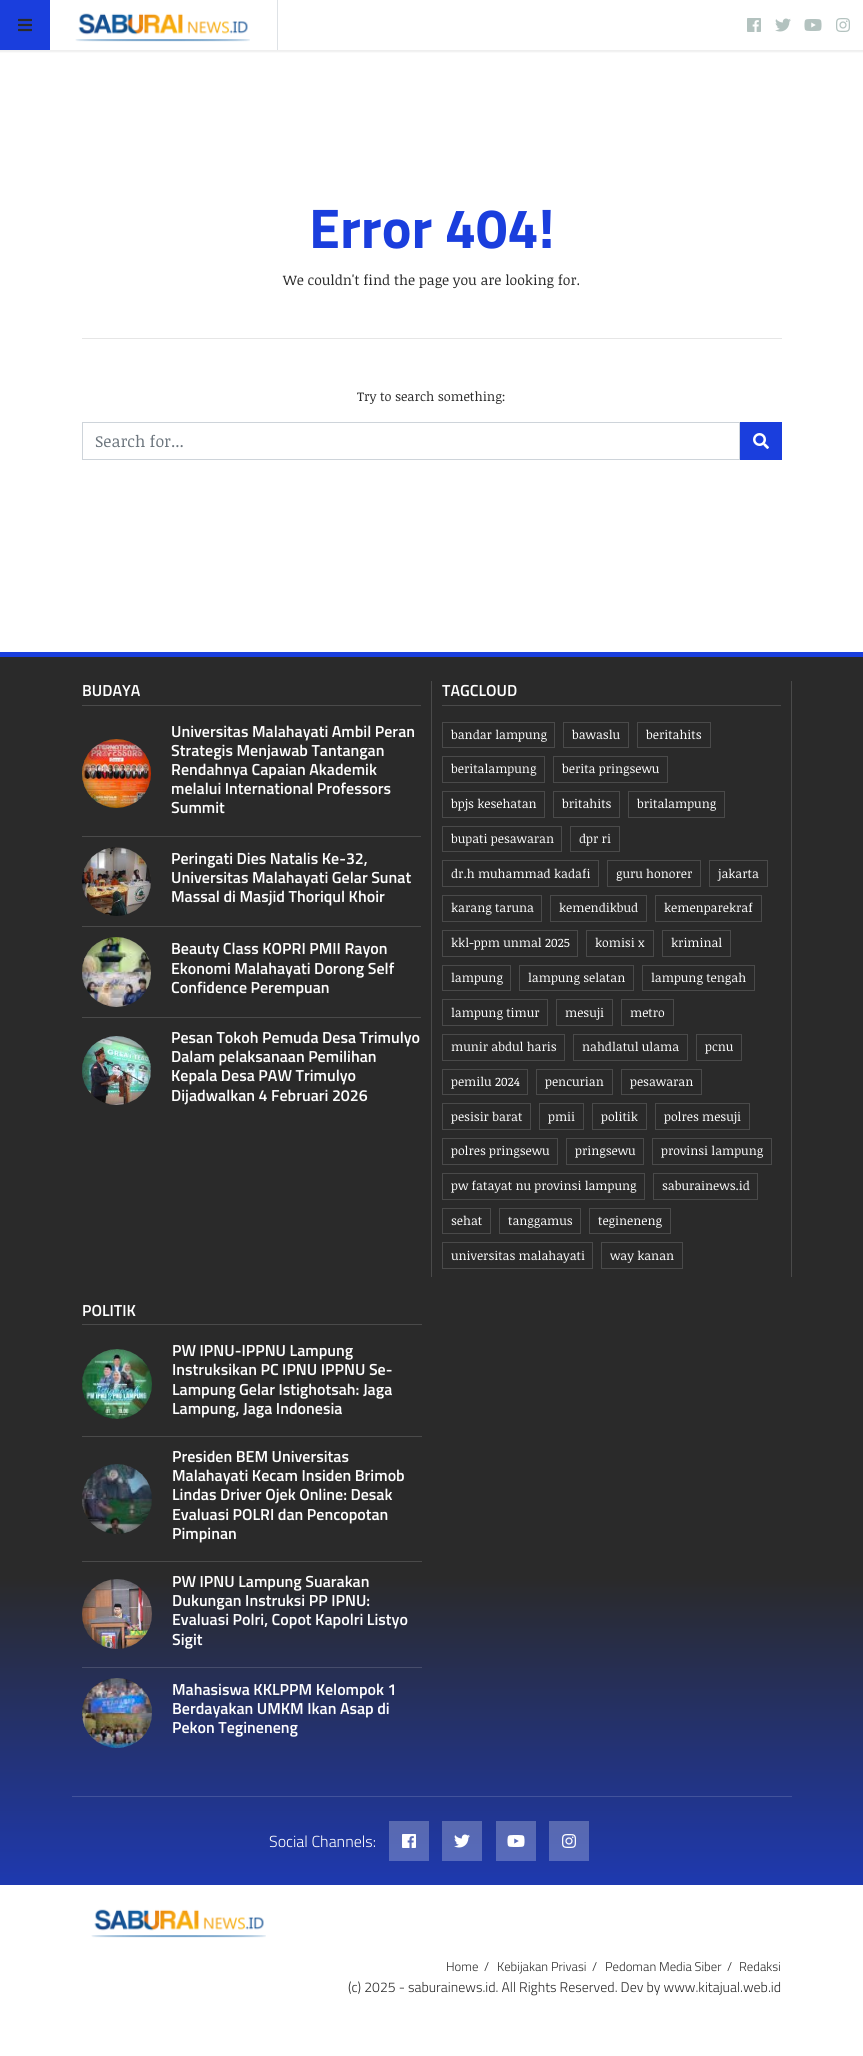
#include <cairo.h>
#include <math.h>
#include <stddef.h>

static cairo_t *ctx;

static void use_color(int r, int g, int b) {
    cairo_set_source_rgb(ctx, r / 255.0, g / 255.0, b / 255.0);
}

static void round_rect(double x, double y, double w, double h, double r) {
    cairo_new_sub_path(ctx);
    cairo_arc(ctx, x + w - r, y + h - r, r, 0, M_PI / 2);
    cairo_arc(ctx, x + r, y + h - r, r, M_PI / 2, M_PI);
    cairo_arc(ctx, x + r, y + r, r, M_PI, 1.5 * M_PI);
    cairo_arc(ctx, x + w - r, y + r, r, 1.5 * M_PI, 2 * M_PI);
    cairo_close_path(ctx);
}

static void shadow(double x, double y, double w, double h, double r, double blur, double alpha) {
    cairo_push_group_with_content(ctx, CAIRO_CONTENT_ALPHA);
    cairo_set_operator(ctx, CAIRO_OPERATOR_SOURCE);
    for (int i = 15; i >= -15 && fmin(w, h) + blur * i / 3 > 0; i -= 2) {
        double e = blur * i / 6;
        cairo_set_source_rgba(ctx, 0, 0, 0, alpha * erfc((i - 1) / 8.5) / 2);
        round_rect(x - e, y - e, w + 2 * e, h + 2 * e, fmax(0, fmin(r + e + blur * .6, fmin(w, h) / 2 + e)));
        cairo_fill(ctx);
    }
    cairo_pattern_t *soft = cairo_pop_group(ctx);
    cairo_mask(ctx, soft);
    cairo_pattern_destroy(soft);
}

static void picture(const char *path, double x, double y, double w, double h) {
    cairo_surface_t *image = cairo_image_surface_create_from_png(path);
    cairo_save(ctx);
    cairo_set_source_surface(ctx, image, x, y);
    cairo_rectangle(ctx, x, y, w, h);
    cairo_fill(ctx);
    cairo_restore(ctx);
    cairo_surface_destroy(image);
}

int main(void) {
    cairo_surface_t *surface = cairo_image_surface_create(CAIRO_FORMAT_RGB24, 863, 2056);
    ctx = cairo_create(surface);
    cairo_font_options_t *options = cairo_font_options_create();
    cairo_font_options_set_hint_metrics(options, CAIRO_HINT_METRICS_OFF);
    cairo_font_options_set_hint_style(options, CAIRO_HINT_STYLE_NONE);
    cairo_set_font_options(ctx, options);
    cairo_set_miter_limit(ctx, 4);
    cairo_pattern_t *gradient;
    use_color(255, 255, 255);
    cairo_paint(ctx);
    cairo_save(ctx);
    cairo_rectangle(ctx, 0, 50, 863, 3);
    cairo_clip(ctx);
    use_color(0, 0, 0);
    shadow(-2, -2, 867, 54, 0, 1, 0.07);
    cairo_restore(ctx);
    use_color(26, 62, 221);
    cairo_rectangle(ctx, 0, 0, 50, 50);
    cairo_fill(ctx);
    picture("img1.png", 18, 18, 14, 14);
    use_color(222, 226, 230);
    cairo_rectangle(ctx, 277, 0, 1, 50);
    cairo_fill(ctx);
    picture("img2.png", 75, 13, 175, 29);
    picture("img3.png", 747, 18, 14, 14);
    picture("img4.png", 775, 18, 16, 14);
    picture("img5.png", 804, 19, 18, 12);
    picture("img6.png", 836, 18, 14, 14);
    cairo_select_font_face(ctx, "Titillium Web", CAIRO_FONT_SLANT_NORMAL, CAIRO_FONT_WEIGHT_BOLD);
    cairo_set_font_size(ctx, 56);
    use_color(26, 62, 221);
    cairo_move_to(ctx, 309, 248);
    cairo_show_text(ctx, "Error 404!");
    cairo_select_font_face(ctx, "Noticia Text", CAIRO_FONT_SLANT_NORMAL, CAIRO_FONT_WEIGHT_NORMAL);
    cairo_set_font_size(ctx, 14);
    use_color(42, 42, 42);
    cairo_move_to(ctx, 283, 285);
    cairo_show_text(ctx, "We couldn't find the page you are looking for.");
    use_color(230, 230, 230);
    cairo_rectangle(ctx, 82, 338, 700, 1);
    cairo_fill(ctx);
    cairo_set_font_size(ctx, 12.75);
    use_color(42, 42, 42);
    cairo_move_to(ctx, 357, 401);
    cairo_show_text(ctx, "Try to search something:");
    cairo_rectangle(ctx, 82.5, 422.5, 657, 37);
    use_color(206, 212, 218);
    cairo_set_line_width(ctx, 1);
    cairo_stroke(ctx);
    cairo_set_font_size(ctx, 16);
    use_color(108, 117, 125);
    cairo_move_to(ctx, 95, 447);
    cairo_show_text(ctx, "Search for...");
    use_color(26, 62, 221);
    cairo_rectangle(ctx, 740, 422, 42, 38);
    cairo_fill(ctx);
    picture("img7.png", 753, 433, 16, 16);
    cairo_rectangle(ctx, 0, 652, 863, 5);
    cairo_fill(ctx);
    use_color(42, 42, 42);
    cairo_rectangle(ctx, 0, 657, 863, 921);
    cairo_fill(ctx);
    gradient = cairo_pattern_create_linear(432, 1578, 432, 1885);
    cairo_pattern_add_color_stop_rgba(gradient, 0, 0.165, 0.165, 0.165, 1);
    cairo_pattern_add_color_stop_rgba(gradient, 1, 0.118, 0.224, 0.69, 1);
    cairo_set_source(ctx, gradient);
    cairo_pattern_destroy(gradient);
    cairo_rectangle(ctx, 0, 1578, 863, 307);
    cairo_fill(ctx);
    use_color(66, 83, 155);
    cairo_rectangle(ctx, 72, 1796, 720, 1);
    cairo_fill(ctx);
    use_color(74, 74, 74);
    cairo_rectangle(ctx, 431, 681, 1, 596);
    cairo_fill(ctx);
    cairo_rectangle(ctx, 82, 705, 339, 1);
    cairo_fill(ctx);
    cairo_select_font_face(ctx, "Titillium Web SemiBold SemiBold", CAIRO_FONT_SLANT_NORMAL, CAIRO_FONT_WEIGHT_NORMAL);
    use_color(255, 255, 255);
    cairo_move_to(ctx, 82, 696);
    cairo_show_text(ctx, "BUDAYA");
    picture("img8.png", 82, 739, 70, 69);
    gradient = cairo_pattern_create_radial(117, 774, 0, 117, 774, 49);
    cairo_pattern_add_color_stop_rgba(gradient, 0, 0, 0, 0, 0);
    cairo_pattern_add_color_stop_rgba(gradient, 0.5, 0, 0, 0, 0);
    cairo_pattern_add_color_stop_rgba(gradient, 1, 0, 0, 0, 0.65);
    cairo_set_source(ctx, gradient);
    cairo_pattern_destroy(gradient);
    cairo_arc(ctx, 116.5, 773.5, 34.5, 0, 2 * M_PI);
    cairo_fill(ctx);
    use_color(255, 255, 255);
    cairo_move_to(ctx, 171, 737);
    cairo_show_text(ctx, "Universitas Malahayati Ambil Peran");
    cairo_move_to(ctx, 171, 756);
    cairo_show_text(ctx, "Strategis Menjawab Tantangan");
    cairo_move_to(ctx, 171, 775);
    cairo_show_text(ctx, "Rendahnya Capaian Akademik");
    cairo_move_to(ctx, 171, 794);
    cairo_show_text(ctx, "melalui International Professors");
    cairo_move_to(ctx, 171, 813);
    cairo_show_text(ctx, "Summit");
    use_color(74, 74, 74);
    cairo_rectangle(ctx, 82, 836, 339, 1);
    cairo_fill(ctx);
    picture("img9.png", 82, 847, 69, 69);
    gradient = cairo_pattern_create_radial(117, 882, 0, 117, 882, 49);
    cairo_pattern_add_color_stop_rgba(gradient, 0, 0, 0, 0, 0);
    cairo_pattern_add_color_stop_rgba(gradient, 0.5, 0, 0, 0, 0);
    cairo_pattern_add_color_stop_rgba(gradient, 1, 0, 0, 0, 0.65);
    cairo_set_source(ctx, gradient);
    cairo_pattern_destroy(gradient);
    cairo_arc(ctx, 116.5, 881.5, 34.5, 0, 2 * M_PI);
    cairo_fill(ctx);
    use_color(255, 255, 255);
    cairo_move_to(ctx, 171, 864);
    cairo_show_text(ctx, "Peringati Dies Natalis Ke-32,");
    cairo_move_to(ctx, 171, 883);
    cairo_show_text(ctx, "Universitas Malahayati Gelar Sunat");
    cairo_move_to(ctx, 171, 902);
    cairo_show_text(ctx, "Massal di Masjid Thoriqul Khoir");
    use_color(74, 74, 74);
    cairo_rectangle(ctx, 82, 926, 339, 1);
    cairo_fill(ctx);
    picture("img10.png", 82, 937, 69, 70);
    gradient = cairo_pattern_create_radial(117, 972, 0, 117, 972, 49);
    cairo_pattern_add_color_stop_rgba(gradient, 0, 0, 0, 0, 0);
    cairo_pattern_add_color_stop_rgba(gradient, 0.5, 0, 0, 0, 0);
    cairo_pattern_add_color_stop_rgba(gradient, 1, 0, 0, 0, 0.65);
    cairo_set_source(ctx, gradient);
    cairo_pattern_destroy(gradient);
    round_rect(82, 937, 69, 70, 34.5);
    cairo_fill(ctx);
    use_color(255, 255, 255);
    cairo_move_to(ctx, 171, 954);
    cairo_show_text(ctx, "Beauty Class KOPRI PMII Rayon");
    cairo_move_to(ctx, 171, 974);
    cairo_show_text(ctx, "Ekonomi Malahayati Dorong Self");
    cairo_move_to(ctx, 171, 993);
    cairo_show_text(ctx, "Confidence Perempuan");
    use_color(74, 74, 74);
    cairo_rectangle(ctx, 82, 1017, 339, 1);
    cairo_fill(ctx);
    picture("img11.png", 82, 1036, 69, 69);
    gradient = cairo_pattern_create_radial(117, 1071, 0, 117, 1071, 49);
    cairo_pattern_add_color_stop_rgba(gradient, 0, 0, 0, 0, 0);
    cairo_pattern_add_color_stop_rgba(gradient, 0.5, 0, 0, 0, 0);
    cairo_pattern_add_color_stop_rgba(gradient, 1, 0, 0, 0, 0.65);
    cairo_set_source(ctx, gradient);
    cairo_pattern_destroy(gradient);
    cairo_arc(ctx, 116.5, 1070.5, 34.5, 0, 2 * M_PI);
    cairo_fill(ctx);
    use_color(255, 255, 255);
    cairo_move_to(ctx, 171, 1043);
    cairo_show_text(ctx, "Pesan Tokoh Pemuda Desa Trimulyo");
    cairo_move_to(ctx, 171, 1062);
    cairo_show_text(ctx, "Dalam pelaksanaan Pemilihan");
    cairo_move_to(ctx, 171, 1081);
    cairo_show_text(ctx, "Kepala Desa PAW Trimulyo");
    cairo_move_to(ctx, 171, 1101);
    cairo_show_text(ctx, "Dijadwalkan 4 Februari 2026");
    use_color(74, 74, 74);
    cairo_rectangle(ctx, 791, 681, 1, 596);
    cairo_fill(ctx);
    cairo_rectangle(ctx, 442, 705, 339, 1);
    cairo_fill(ctx);
    use_color(255, 255, 255);
    cairo_move_to(ctx, 442, 696);
    cairo_show_text(ctx, "TAGCLOUD");
    cairo_rectangle(ctx, 442.5, 722.5, 112, 25);
    use_color(74, 74, 74);
    cairo_stroke(ctx);
    cairo_select_font_face(ctx, "Noticia Text", CAIRO_FONT_SLANT_NORMAL, CAIRO_FONT_WEIGHT_NORMAL);
    cairo_set_font_size(ctx, 12.25);
    use_color(255, 255, 255);
    cairo_move_to(ctx, 451, 739);
    cairo_show_text(ctx, "bandar lampung");
    cairo_rectangle(ctx, 563.5, 722.5, 65, 25);
    use_color(74, 74, 74);
    cairo_stroke(ctx);
    use_color(255, 255, 255);
    cairo_move_to(ctx, 572, 739);
    cairo_show_text(ctx, "bawaslu");
    cairo_rectangle(ctx, 637.5, 722.5, 73, 25);
    use_color(74, 74, 74);
    cairo_stroke(ctx);
    use_color(255, 255, 255);
    cairo_move_to(ctx, 646, 739);
    cairo_show_text(ctx, "beritahits");
    cairo_rectangle(ctx, 442.5, 756.5, 102, 26);
    use_color(74, 74, 74);
    cairo_stroke(ctx);
    use_color(255, 255, 255);
    cairo_move_to(ctx, 451, 773);
    cairo_show_text(ctx, "beritalampung");
    cairo_rectangle(ctx, 553.5, 756.5, 114, 26);
    use_color(74, 74, 74);
    cairo_stroke(ctx);
    use_color(255, 255, 255);
    cairo_move_to(ctx, 562, 773);
    cairo_show_text(ctx, "berita pringsewu");
    cairo_rectangle(ctx, 442.5, 791.5, 102, 26);
    use_color(74, 74, 74);
    cairo_stroke(ctx);
    use_color(255, 255, 255);
    cairo_move_to(ctx, 451, 808);
    cairo_show_text(ctx, "bpjs kesehatan");
    cairo_rectangle(ctx, 553.5, 791.5, 66, 26);
    use_color(74, 74, 74);
    cairo_stroke(ctx);
    use_color(255, 255, 255);
    cairo_move_to(ctx, 562, 808);
    cairo_show_text(ctx, "britahits");
    cairo_rectangle(ctx, 628.5, 791.5, 96, 26);
    use_color(74, 74, 74);
    cairo_stroke(ctx);
    use_color(255, 255, 255);
    cairo_move_to(ctx, 637, 808);
    cairo_show_text(ctx, "britalampung");
    cairo_rectangle(ctx, 442.5, 826.5, 119, 25);
    use_color(74, 74, 74);
    cairo_stroke(ctx);
    use_color(255, 255, 255);
    cairo_move_to(ctx, 451, 843);
    cairo_show_text(ctx, "bupati pesawaran");
    cairo_rectangle(ctx, 570.5, 826.5, 49, 25);
    use_color(74, 74, 74);
    cairo_stroke(ctx);
    use_color(255, 255, 255);
    cairo_move_to(ctx, 579, 843);
    cairo_show_text(ctx, "dpr ri");
    cairo_rectangle(ctx, 442.5, 860.5, 156, 26);
    use_color(74, 74, 74);
    cairo_stroke(ctx);
    use_color(255, 255, 255);
    cairo_move_to(ctx, 451, 878);
    cairo_show_text(ctx, "dr.h muhammad kadafi");
    cairo_rectangle(ctx, 607.5, 860.5, 93, 26);
    use_color(74, 74, 74);
    cairo_stroke(ctx);
    use_color(255, 255, 255);
    cairo_move_to(ctx, 616, 878);
    cairo_show_text(ctx, "guru honorer");
    cairo_rectangle(ctx, 709.5, 860.5, 58, 26);
    use_color(74, 74, 74);
    cairo_stroke(ctx);
    use_color(255, 255, 255);
    cairo_move_to(ctx, 718, 878);
    cairo_show_text(ctx, "jakarta");
    cairo_rectangle(ctx, 442.5, 895.5, 99, 26);
    use_color(74, 74, 74);
    cairo_stroke(ctx);
    use_color(255, 255, 255);
    cairo_move_to(ctx, 451, 912);
    cairo_show_text(ctx, "karang taruna");
    cairo_rectangle(ctx, 550.5, 895.5, 96, 26);
    use_color(74, 74, 74);
    cairo_stroke(ctx);
    use_color(255, 255, 255);
    cairo_move_to(ctx, 559, 912);
    cairo_show_text(ctx, "kemendikbud");
    cairo_rectangle(ctx, 655.5, 895.5, 106, 26);
    use_color(74, 74, 74);
    cairo_stroke(ctx);
    use_color(255, 255, 255);
    cairo_move_to(ctx, 664, 912);
    cairo_show_text(ctx, "kemenparekraf");
    cairo_rectangle(ctx, 442.5, 930.5, 135, 26);
    use_color(74, 74, 74);
    cairo_stroke(ctx);
    use_color(255, 255, 255);
    cairo_move_to(ctx, 451, 947);
    cairo_show_text(ctx, "kkl-ppm unmal 2025");
    cairo_rectangle(ctx, 586.5, 930.5, 67, 26);
    use_color(74, 74, 74);
    cairo_stroke(ctx);
    use_color(255, 255, 255);
    cairo_move_to(ctx, 595, 947);
    cairo_show_text(ctx, "komisi x");
    cairo_rectangle(ctx, 662.5, 930.5, 68, 26);
    use_color(74, 74, 74);
    cairo_stroke(ctx);
    use_color(255, 255, 255);
    cairo_move_to(ctx, 671, 947);
    cairo_show_text(ctx, "kriminal");
    cairo_rectangle(ctx, 442.5, 965.5, 68, 25);
    use_color(74, 74, 74);
    cairo_stroke(ctx);
    use_color(255, 255, 255);
    cairo_move_to(ctx, 451, 982);
    cairo_show_text(ctx, "lampung");
    cairo_rectangle(ctx, 519.5, 965.5, 114, 25);
    use_color(74, 74, 74);
    cairo_stroke(ctx);
    use_color(255, 255, 255);
    cairo_move_to(ctx, 528, 982);
    cairo_show_text(ctx, "lampung selatan");
    cairo_rectangle(ctx, 642.5, 965.5, 112, 25);
    use_color(74, 74, 74);
    cairo_stroke(ctx);
    use_color(255, 255, 255);
    cairo_move_to(ctx, 651, 982);
    cairo_show_text(ctx, "lampung tengah");
    cairo_rectangle(ctx, 442.5, 999.5, 105, 26);
    use_color(74, 74, 74);
    cairo_stroke(ctx);
    use_color(255, 255, 255);
    cairo_move_to(ctx, 451, 1017);
    cairo_show_text(ctx, "lampung timur");
    cairo_rectangle(ctx, 556.5, 999.5, 56, 26);
    use_color(74, 74, 74);
    cairo_stroke(ctx);
    use_color(255, 255, 255);
    cairo_move_to(ctx, 565, 1017);
    cairo_show_text(ctx, "mesuji");
    cairo_rectangle(ctx, 621.5, 999.5, 52, 26);
    use_color(74, 74, 74);
    cairo_stroke(ctx);
    use_color(255, 255, 255);
    cairo_move_to(ctx, 630, 1017);
    cairo_show_text(ctx, "metro");
    cairo_rectangle(ctx, 442.5, 1034.5, 122, 26);
    use_color(74, 74, 74);
    cairo_stroke(ctx);
    use_color(255, 255, 255);
    cairo_move_to(ctx, 451, 1051);
    cairo_show_text(ctx, "munir abdul haris");
    cairo_rectangle(ctx, 573.5, 1034.5, 114, 26);
    use_color(74, 74, 74);
    cairo_stroke(ctx);
    use_color(255, 255, 255);
    cairo_move_to(ctx, 582, 1051);
    cairo_show_text(ctx, "nahdlatul ulama");
    cairo_rectangle(ctx, 696.5, 1034.5, 45, 26);
    use_color(74, 74, 74);
    cairo_stroke(ctx);
    use_color(255, 255, 255);
    cairo_move_to(ctx, 705, 1051);
    cairo_show_text(ctx, "pcnu");
    cairo_rectangle(ctx, 442.5, 1069.5, 85, 25);
    use_color(74, 74, 74);
    cairo_stroke(ctx);
    use_color(255, 255, 255);
    cairo_move_to(ctx, 451, 1086);
    cairo_show_text(ctx, "pemilu 2024");
    cairo_rectangle(ctx, 536.5, 1069.5, 76, 25);
    use_color(74, 74, 74);
    cairo_stroke(ctx);
    use_color(255, 255, 255);
    cairo_move_to(ctx, 545, 1086);
    cairo_show_text(ctx, "pencurian");
    cairo_rectangle(ctx, 621.5, 1069.5, 80, 25);
    use_color(74, 74, 74);
    cairo_stroke(ctx);
    use_color(255, 255, 255);
    cairo_move_to(ctx, 630, 1086);
    cairo_show_text(ctx, "pesawaran");
    cairo_rectangle(ctx, 442.5, 1103.5, 88, 26);
    use_color(74, 74, 74);
    cairo_stroke(ctx);
    use_color(255, 255, 255);
    cairo_move_to(ctx, 451, 1121);
    cairo_show_text(ctx, "pesisir barat");
    cairo_rectangle(ctx, 539.5, 1103.5, 44, 26);
    use_color(74, 74, 74);
    cairo_stroke(ctx);
    use_color(255, 255, 255);
    cairo_move_to(ctx, 548, 1121);
    cairo_show_text(ctx, "pmii");
    cairo_rectangle(ctx, 592.5, 1103.5, 54, 26);
    use_color(74, 74, 74);
    cairo_stroke(ctx);
    use_color(255, 255, 255);
    cairo_move_to(ctx, 601, 1121);
    cairo_show_text(ctx, "politik");
    cairo_rectangle(ctx, 655.5, 1103.5, 94, 26);
    use_color(74, 74, 74);
    cairo_stroke(ctx);
    use_color(255, 255, 255);
    cairo_move_to(ctx, 664, 1121);
    cairo_show_text(ctx, "polres mesuji");
    cairo_rectangle(ctx, 442.5, 1138.5, 115, 26);
    use_color(74, 74, 74);
    cairo_stroke(ctx);
    use_color(255, 255, 255);
    cairo_move_to(ctx, 451, 1155);
    cairo_show_text(ctx, "polres pringsewu");
    cairo_rectangle(ctx, 566.5, 1138.5, 77, 26);
    use_color(74, 74, 74);
    cairo_stroke(ctx);
    use_color(255, 255, 255);
    cairo_move_to(ctx, 575, 1155);
    cairo_show_text(ctx, "pringsewu");
    cairo_rectangle(ctx, 652.5, 1138.5, 119, 26);
    use_color(74, 74, 74);
    cairo_stroke(ctx);
    use_color(255, 255, 255);
    cairo_move_to(ctx, 661, 1155);
    cairo_show_text(ctx, "provinsi lampung");
    cairo_rectangle(ctx, 442.5, 1173.5, 202, 26);
    use_color(74, 74, 74);
    cairo_stroke(ctx);
    use_color(255, 255, 255);
    cairo_move_to(ctx, 451, 1190);
    cairo_show_text(ctx, "pw fatayat nu provinsi lampung");
    cairo_rectangle(ctx, 653.5, 1173.5, 104, 26);
    use_color(74, 74, 74);
    cairo_stroke(ctx);
    use_color(255, 255, 255);
    cairo_move_to(ctx, 662, 1190);
    cairo_show_text(ctx, "saburainews.id");
    cairo_rectangle(ctx, 442.5, 1208.5, 48, 25);
    use_color(74, 74, 74);
    cairo_stroke(ctx);
    use_color(255, 255, 255);
    cairo_move_to(ctx, 451, 1225);
    cairo_show_text(ctx, "sehat");
    cairo_rectangle(ctx, 499.5, 1208.5, 81, 25);
    use_color(74, 74, 74);
    cairo_stroke(ctx);
    use_color(255, 255, 255);
    cairo_move_to(ctx, 508, 1225);
    cairo_show_text(ctx, "tanggamus");
    cairo_rectangle(ctx, 589.5, 1208.5, 81, 25);
    use_color(74, 74, 74);
    cairo_stroke(ctx);
    use_color(255, 255, 255);
    cairo_move_to(ctx, 598, 1225);
    cairo_show_text(ctx, "tegineneng");
    cairo_rectangle(ctx, 442.5, 1242.5, 150, 26);
    use_color(74, 74, 74);
    cairo_stroke(ctx);
    use_color(255, 255, 255);
    cairo_move_to(ctx, 451, 1260);
    cairo_show_text(ctx, "universitas malahayati");
    cairo_rectangle(ctx, 601.5, 1242.5, 81, 26);
    use_color(74, 74, 74);
    cairo_stroke(ctx);
    use_color(255, 255, 255);
    cairo_move_to(ctx, 610, 1260);
    cairo_show_text(ctx, "way kanan");
    use_color(74, 74, 74);
    cairo_rectangle(ctx, 82, 1324, 340, 1);
    cairo_fill(ctx);
    cairo_select_font_face(ctx, "Titillium Web SemiBold SemiBold", CAIRO_FONT_SLANT_NORMAL, CAIRO_FONT_WEIGHT_NORMAL);
    cairo_set_font_size(ctx, 16);
    use_color(255, 255, 255);
    cairo_move_to(ctx, 82, 1316);
    cairo_show_text(ctx, "POLITIK");
    picture("img12.png", 82, 1349, 70, 70);
    gradient = cairo_pattern_create_radial(117, 1384, 0, 117, 1384, 49);
    cairo_pattern_add_color_stop_rgba(gradient, 0, 0, 0, 0, 0);
    cairo_pattern_add_color_stop_rgba(gradient, 0.5, 0, 0, 0, 0);
    cairo_pattern_add_color_stop_rgba(gradient, 1, 0, 0, 0, 0.65);
    cairo_set_source(ctx, gradient);
    cairo_pattern_destroy(gradient);
    cairo_arc(ctx, 117, 1384, 35, 0, 2 * M_PI);
    cairo_fill(ctx);
    use_color(255, 255, 255);
    cairo_move_to(ctx, 172, 1356);
    cairo_show_text(ctx, "PW IPNU-IPPNU Lampung");
    cairo_move_to(ctx, 172, 1375);
    cairo_show_text(ctx, "Instruksikan PC IPNU IPPNU Se-");
    cairo_move_to(ctx, 172, 1395);
    cairo_show_text(ctx, "Lampung Gelar Istighotsah: Jaga");
    cairo_move_to(ctx, 172, 1414);
    cairo_show_text(ctx, "Lampung, Jaga Indonesia");
    use_color(74, 74, 74);
    cairo_rectangle(ctx, 82, 1436, 340, 1);
    cairo_fill(ctx);
    picture("img13.png", 82, 1464, 70, 70);
    gradient = cairo_pattern_create_radial(117, 1499, 0, 117, 1499, 49);
    cairo_pattern_add_color_stop_rgba(gradient, 0, 0, 0, 0, 0);
    cairo_pattern_add_color_stop_rgba(gradient, 0.5, 0, 0, 0, 0);
    cairo_pattern_add_color_stop_rgba(gradient, 1, 0, 0, 0, 0.65);
    cairo_set_source(ctx, gradient);
    cairo_pattern_destroy(gradient);
    cairo_arc(ctx, 117, 1499, 35, 0, 2 * M_PI);
    cairo_fill(ctx);
    use_color(255, 255, 255);
    cairo_move_to(ctx, 172, 1462);
    cairo_show_text(ctx, "Presiden BEM Universitas");
    cairo_move_to(ctx, 172, 1481);
    cairo_show_text(ctx, "Malahayati Kecam Insiden Brimob");
    cairo_move_to(ctx, 172, 1500);
    cairo_show_text(ctx, "Lindas Driver Ojek Online: Desak");
    cairo_move_to(ctx, 172, 1520);
    cairo_show_text(ctx, "Evaluasi POLRI dan Pencopotan");
    cairo_move_to(ctx, 172, 1539);
    cairo_show_text(ctx, "Pimpinan");
    use_color(74, 74, 74);
    cairo_rectangle(ctx, 82, 1561, 340, 1);
    cairo_fill(ctx);
    picture("img14.png", 82, 1579, 70, 70);
    gradient = cairo_pattern_create_radial(117, 1614, 0, 117, 1614, 49);
    cairo_pattern_add_color_stop_rgba(gradient, 0, 0, 0, 0, 0);
    cairo_pattern_add_color_stop_rgba(gradient, 0.5, 0, 0, 0, 0);
    cairo_pattern_add_color_stop_rgba(gradient, 1, 0, 0, 0, 0.65);
    cairo_set_source(ctx, gradient);
    cairo_pattern_destroy(gradient);
    cairo_arc(ctx, 117, 1614, 35, 0, 2 * M_PI);
    cairo_fill(ctx);
    use_color(255, 255, 255);
    cairo_move_to(ctx, 172, 1587);
    cairo_show_text(ctx, "PW IPNU Lampung Suarakan");
    cairo_move_to(ctx, 172, 1606);
    cairo_show_text(ctx, "Dukungan Instruksi PP IPNU:");
    cairo_move_to(ctx, 172, 1625);
    cairo_show_text(ctx, "Evaluasi Polri, Copot Kapolri Listyo");
    cairo_move_to(ctx, 172, 1645);
    cairo_show_text(ctx, "Sigit");
    use_color(71, 77, 107);
    cairo_rectangle(ctx, 82, 1667, 340, 1);
    cairo_fill(ctx);
    picture("img15.png", 82, 1678, 70, 70);
    gradient = cairo_pattern_create_radial(117, 1713, 0, 117, 1713, 49);
    cairo_pattern_add_color_stop_rgba(gradient, 0, 0, 0, 0, 0);
    cairo_pattern_add_color_stop_rgba(gradient, 0.5, 0, 0, 0, 0);
    cairo_pattern_add_color_stop_rgba(gradient, 1, 0, 0, 0, 0.65);
    cairo_set_source(ctx, gradient);
    cairo_pattern_destroy(gradient);
    cairo_arc(ctx, 117, 1713, 35, 0, 2 * M_PI);
    cairo_fill(ctx);
    use_color(255, 255, 255);
    cairo_move_to(ctx, 172, 1695);
    cairo_show_text(ctx, "Mahasiswa KKLPPM Kelompok 1");
    cairo_move_to(ctx, 172, 1714);
    cairo_show_text(ctx, "Berdayakan UMKM Ikan Asap di");
    cairo_move_to(ctx, 172, 1733);
    cairo_show_text(ctx, "Pekon Tegineneng");
    cairo_select_font_face(ctx, "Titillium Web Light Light", CAIRO_FONT_SLANT_NORMAL, CAIRO_FONT_WEIGHT_NORMAL);
    cairo_move_to(ctx, 269, 1847);
    cairo_show_text(ctx, "Social Channels:");
    gradient = cairo_pattern_create_linear(432, 1578, 432, 1885);
    cairo_pattern_add_color_stop_rgba(gradient, 0, 0.373, 0.373, 0.373, 1);
    cairo_pattern_add_color_stop_rgba(gradient, 1, 0.337, 0.42, 0.769, 1);
    cairo_set_source(ctx, gradient);
    cairo_pattern_destroy(gradient);
    cairo_rectangle(ctx, 389, 1821, 40, 40);
    cairo_fill(ctx);
    picture("img16.png", 402, 1834, 14, 14);
    cairo_rectangle(ctx, 442, 1821, 40, 40);
    cairo_fill(ctx);
    picture("img17.png", 454, 1834, 16, 14);
    cairo_rectangle(ctx, 496, 1821, 40, 40);
    cairo_fill(ctx);
    picture("img18.png", 507, 1835, 18, 12);
    cairo_rectangle(ctx, 549, 1821, 40, 40);
    cairo_fill(ctx);
    picture("img19.png", 562, 1834, 14, 14);
    picture("img20.png", 91, 1909, 175, 29);
    cairo_set_font_size(ctx, 12.75);
    use_color(42, 42, 42);
    cairo_move_to(ctx, 446, 1971);
    cairo_show_text(ctx, "Home");
    cairo_move_to(ctx, 484, 1971);
    cairo_show_text(ctx, "/");
    cairo_move_to(ctx, 497, 1971);
    cairo_show_text(ctx, "Kebijakan Privasi");
    cairo_move_to(ctx, 592, 1971);
    cairo_show_text(ctx, "/");
    cairo_move_to(ctx, 605, 1971);
    cairo_show_text(ctx, "Pedoman Media Siber");
    cairo_move_to(ctx, 727, 1971);
    cairo_show_text(ctx, "/");
    cairo_move_to(ctx, 739, 1971);
    cairo_show_text(ctx, "Redaksi");
    cairo_set_font_size(ctx, 14);
    cairo_move_to(ctx, 348, 1992);
    cairo_show_text(ctx, "(c) 2025 - saburainews.id. All Rights Reserved. Dev by www.kitajual.web.id");
    cairo_surface_write_to_png(surface, "result.png");
    cairo_font_options_destroy(options);
    cairo_destroy(ctx);
    cairo_surface_destroy(surface);
    return 0;
}
